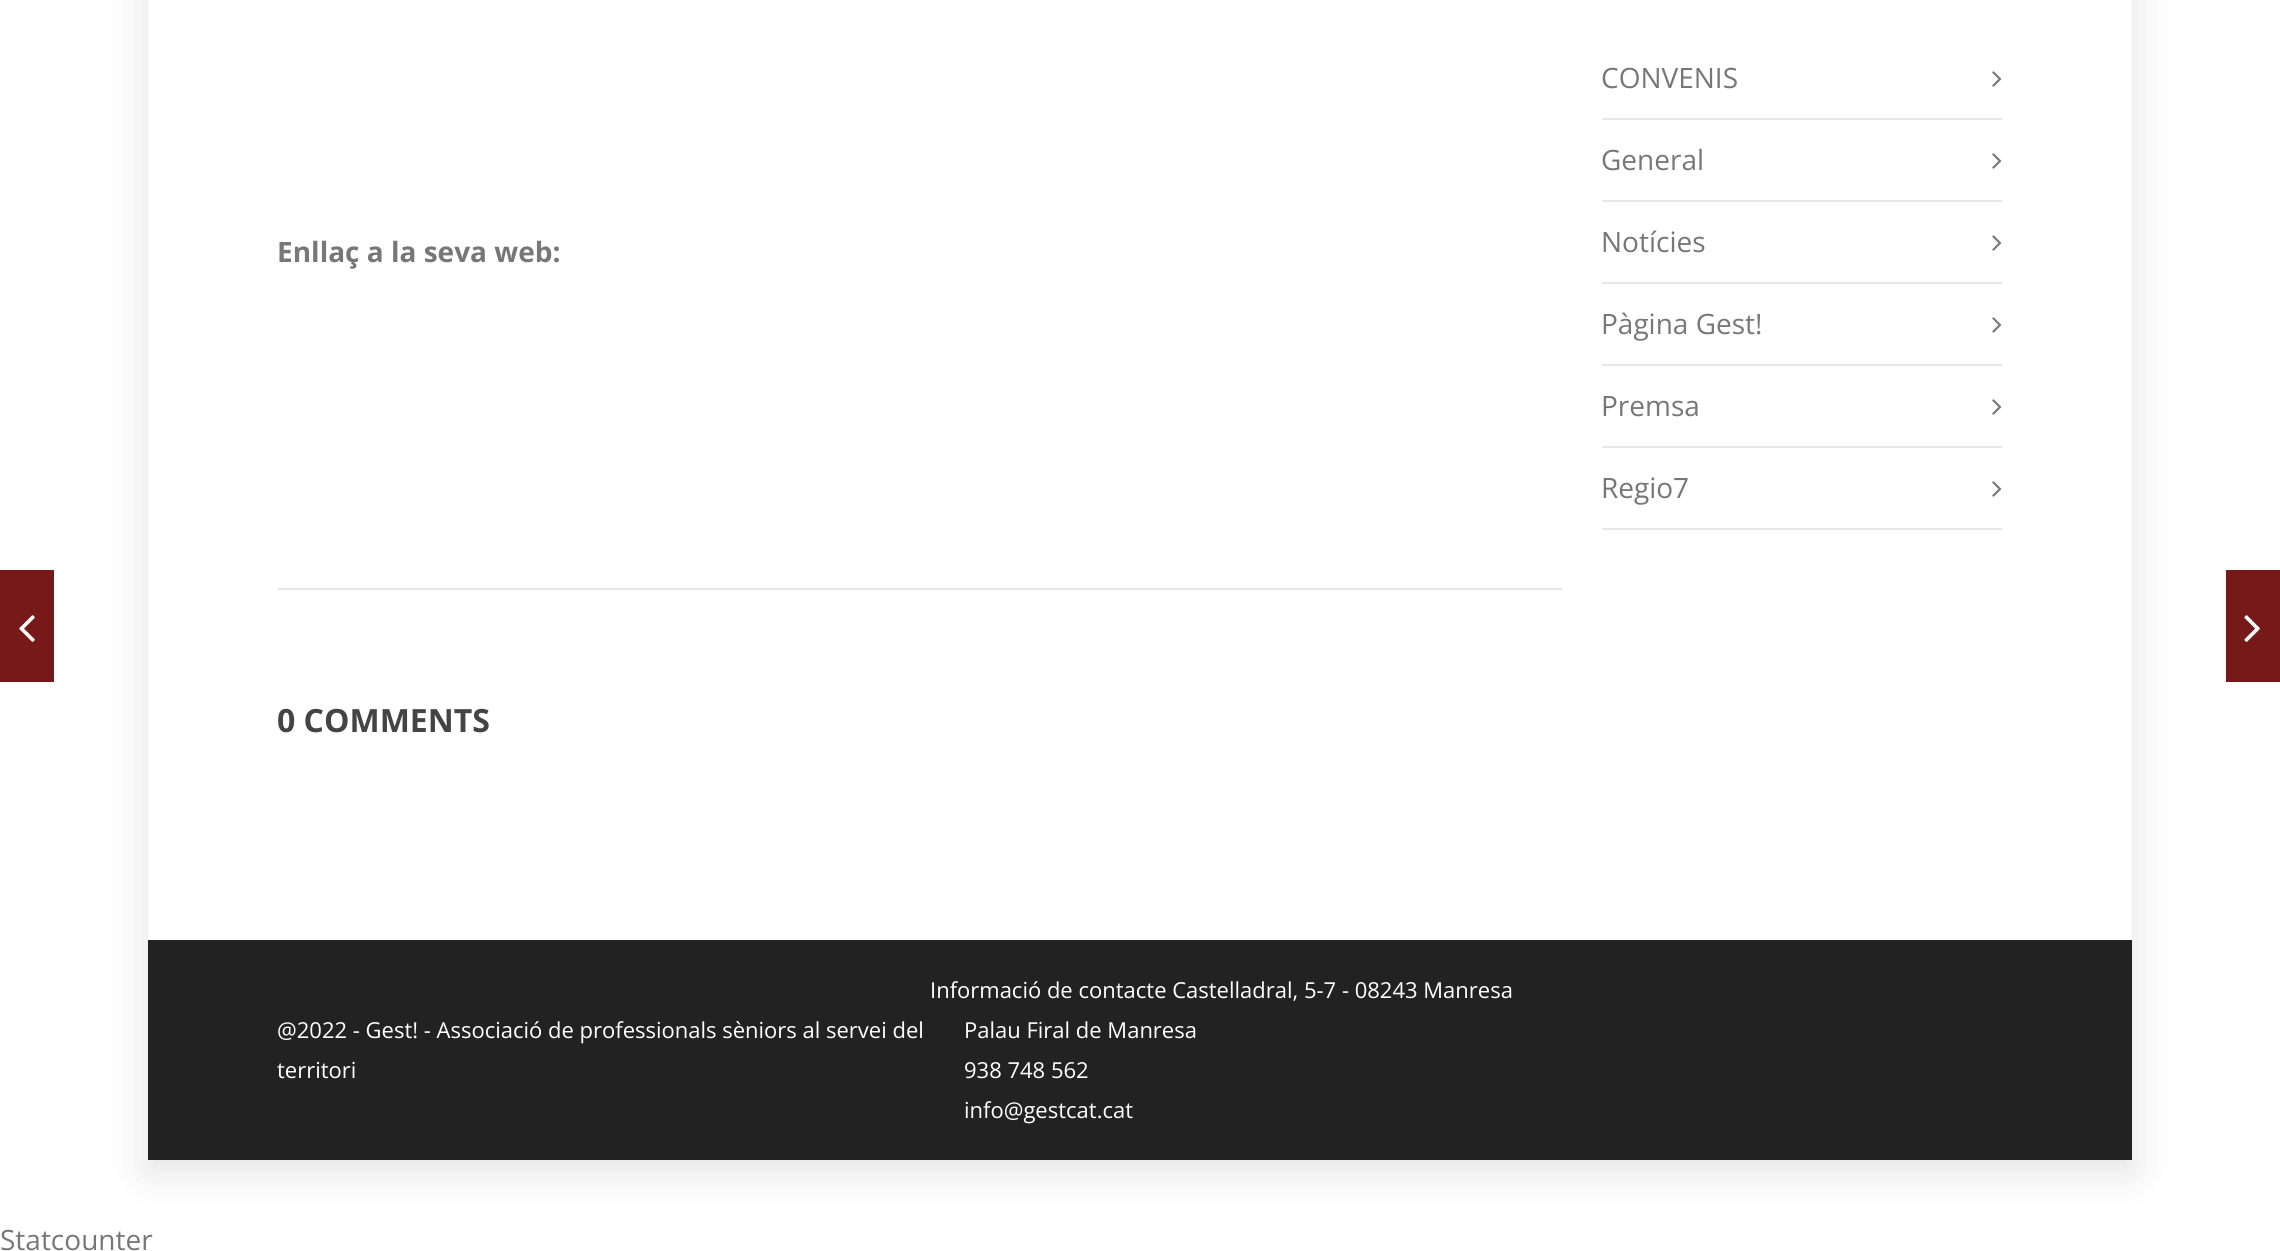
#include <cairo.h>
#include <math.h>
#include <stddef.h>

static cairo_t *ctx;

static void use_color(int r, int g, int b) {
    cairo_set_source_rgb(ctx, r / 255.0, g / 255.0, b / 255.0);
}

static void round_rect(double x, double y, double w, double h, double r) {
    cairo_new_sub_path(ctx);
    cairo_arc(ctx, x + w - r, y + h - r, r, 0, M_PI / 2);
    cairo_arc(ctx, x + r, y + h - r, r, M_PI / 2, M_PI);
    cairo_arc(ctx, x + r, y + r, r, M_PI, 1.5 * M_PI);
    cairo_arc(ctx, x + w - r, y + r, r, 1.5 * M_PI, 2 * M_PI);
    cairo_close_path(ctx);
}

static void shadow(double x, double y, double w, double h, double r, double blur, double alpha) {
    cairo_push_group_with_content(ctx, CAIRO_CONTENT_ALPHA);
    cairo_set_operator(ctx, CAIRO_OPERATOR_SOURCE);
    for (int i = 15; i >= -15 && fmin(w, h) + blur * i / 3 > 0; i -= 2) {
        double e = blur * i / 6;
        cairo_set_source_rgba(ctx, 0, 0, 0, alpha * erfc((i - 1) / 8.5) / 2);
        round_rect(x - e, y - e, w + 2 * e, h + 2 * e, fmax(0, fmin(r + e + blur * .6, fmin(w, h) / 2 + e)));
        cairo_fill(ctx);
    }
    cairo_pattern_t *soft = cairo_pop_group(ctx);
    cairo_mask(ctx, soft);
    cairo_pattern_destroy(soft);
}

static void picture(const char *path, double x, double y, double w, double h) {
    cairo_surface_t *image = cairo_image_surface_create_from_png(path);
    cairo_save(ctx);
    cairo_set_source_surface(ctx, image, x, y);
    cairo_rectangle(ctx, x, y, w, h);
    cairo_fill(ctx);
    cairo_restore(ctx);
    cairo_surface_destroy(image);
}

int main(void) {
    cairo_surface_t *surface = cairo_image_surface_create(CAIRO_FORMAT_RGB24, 2280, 1251);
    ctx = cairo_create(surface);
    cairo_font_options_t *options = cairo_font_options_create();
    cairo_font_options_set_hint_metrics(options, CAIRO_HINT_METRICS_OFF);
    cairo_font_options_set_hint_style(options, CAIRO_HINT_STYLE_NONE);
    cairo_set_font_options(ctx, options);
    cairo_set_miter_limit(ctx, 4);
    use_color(255, 255, 255);
    cairo_paint(ctx);
    cairo_save(ctx);
    cairo_set_fill_rule(ctx, CAIRO_FILL_RULE_EVEN_ODD);
    cairo_new_path(ctx);
    cairo_move_to(ctx, 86, 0);
    cairo_line_to(ctx, 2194, 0);
    cairo_line_to(ctx, 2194, 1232);
    cairo_line_to(ctx, 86, 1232);
    cairo_close_path(ctx);
    cairo_move_to(ctx, 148, -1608);
    cairo_line_to(ctx, 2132, -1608);
    cairo_line_to(ctx, 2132, 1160);
    cairo_line_to(ctx, 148, 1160);
    cairo_close_path(ctx);
    cairo_clip(ctx);
    use_color(0, 0, 0);
    shadow(144, -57, 1992, 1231, 0, 19, 0.1);
    cairo_restore(ctx);
    cairo_select_font_face(ctx, "Open Sans", CAIRO_FONT_SLANT_NORMAL, CAIRO_FONT_WEIGHT_BOLD);
    cairo_set_font_size(ctx, 28);
    use_color(119, 119, 119);
    cairo_move_to(ctx, 277, 262);
    cairo_show_text(ctx, "Enllaç a la seva web:");
    use_color(231, 231, 231);
    cairo_rectangle(ctx, 278, 588, 1284, 2);
    cairo_fill(ctx);
    cairo_set_font_size(ctx, 32);
    use_color(68, 68, 68);
    cairo_move_to(ctx, 277, 732);
    cairo_show_text(ctx, "0 COMMENTS");
    use_color(231, 231, 231);
    cairo_rectangle(ctx, 1602, 118, 400, 2);
    cairo_fill(ctx);
    cairo_select_font_face(ctx, "Open Sans", CAIRO_FONT_SLANT_NORMAL, CAIRO_FONT_WEIGHT_NORMAL);
    cairo_set_font_size(ctx, 28);
    use_color(119, 119, 119);
    cairo_move_to(ctx, 1601, 88);
    cairo_show_text(ctx, "CONVENIS");
    picture("img1.png", 1992, 71, 10, 16);
    use_color(231, 231, 231);
    cairo_rectangle(ctx, 1602, 200, 400, 2);
    cairo_fill(ctx);
    use_color(119, 119, 119);
    cairo_move_to(ctx, 1601, 170);
    cairo_show_text(ctx, "General");
    picture("img1.png", 1992, 153, 10, 16);
    use_color(231, 231, 231);
    cairo_rectangle(ctx, 1602, 282, 400, 2);
    cairo_fill(ctx);
    use_color(119, 119, 119);
    cairo_move_to(ctx, 1601, 252);
    cairo_show_text(ctx, "Notícies");
    picture("img1.png", 1992, 235, 10, 16);
    use_color(231, 231, 231);
    cairo_rectangle(ctx, 1602, 364, 400, 2);
    cairo_fill(ctx);
    use_color(119, 119, 119);
    cairo_move_to(ctx, 1601, 334);
    cairo_show_text(ctx, "Pàgina Gest!");
    picture("img1.png", 1992, 317, 10, 16);
    use_color(231, 231, 231);
    cairo_rectangle(ctx, 1602, 446, 400, 2);
    cairo_fill(ctx);
    use_color(119, 119, 119);
    cairo_move_to(ctx, 1601, 416);
    cairo_show_text(ctx, "Premsa");
    picture("img1.png", 1992, 399, 10, 16);
    use_color(231, 231, 231);
    cairo_rectangle(ctx, 1602, 528, 400, 2);
    cairo_fill(ctx);
    use_color(119, 119, 119);
    cairo_move_to(ctx, 1601, 498);
    cairo_show_text(ctx, "Regio7");
    picture("img1.png", 1992, 481, 10, 16);
    use_color(120, 25, 25);
    cairo_rectangle(ctx, 0, 570, 54, 112);
    cairo_fill(ctx);
    picture("img2.png", 19, 615, 16, 27);
    cairo_rectangle(ctx, 2226, 570, 54, 112);
    cairo_fill(ctx);
    picture("img3.png", 2244, 615, 16, 27);
    use_color(34, 34, 34);
    cairo_rectangle(ctx, 148, 940, 1984, 220);
    cairo_fill(ctx);
    cairo_set_font_size(ctx, 22);
    use_color(255, 255, 255);
    cairo_move_to(ctx, 277, 1038);
    cairo_show_text(ctx, "@2022 - Gest! - Associació de professionals sèniors al servei del");
    cairo_move_to(ctx, 277, 1078);
    cairo_show_text(ctx, "territori");
    cairo_move_to(ctx, 930, 998);
    cairo_show_text(ctx, "Informació de contacte Castelladral, 5-7 - 08243 Manresa");
    cairo_move_to(ctx, 964, 1038);
    cairo_show_text(ctx, "Palau Firal de Manresa");
    cairo_move_to(ctx, 964, 1078);
    cairo_show_text(ctx, "938 748 562");
    cairo_move_to(ctx, 964, 1118);
    cairo_show_text(ctx, "info@gestcat.cat");
    cairo_set_font_size(ctx, 28);
    use_color(119, 119, 119);
    cairo_move_to(ctx, 0, 1250);
    cairo_show_text(ctx, "Statcounter");
    cairo_surface_write_to_png(surface, "result.png");
    cairo_font_options_destroy(options);
    cairo_destroy(ctx);
    cairo_surface_destroy(surface);
    return 0;
}
